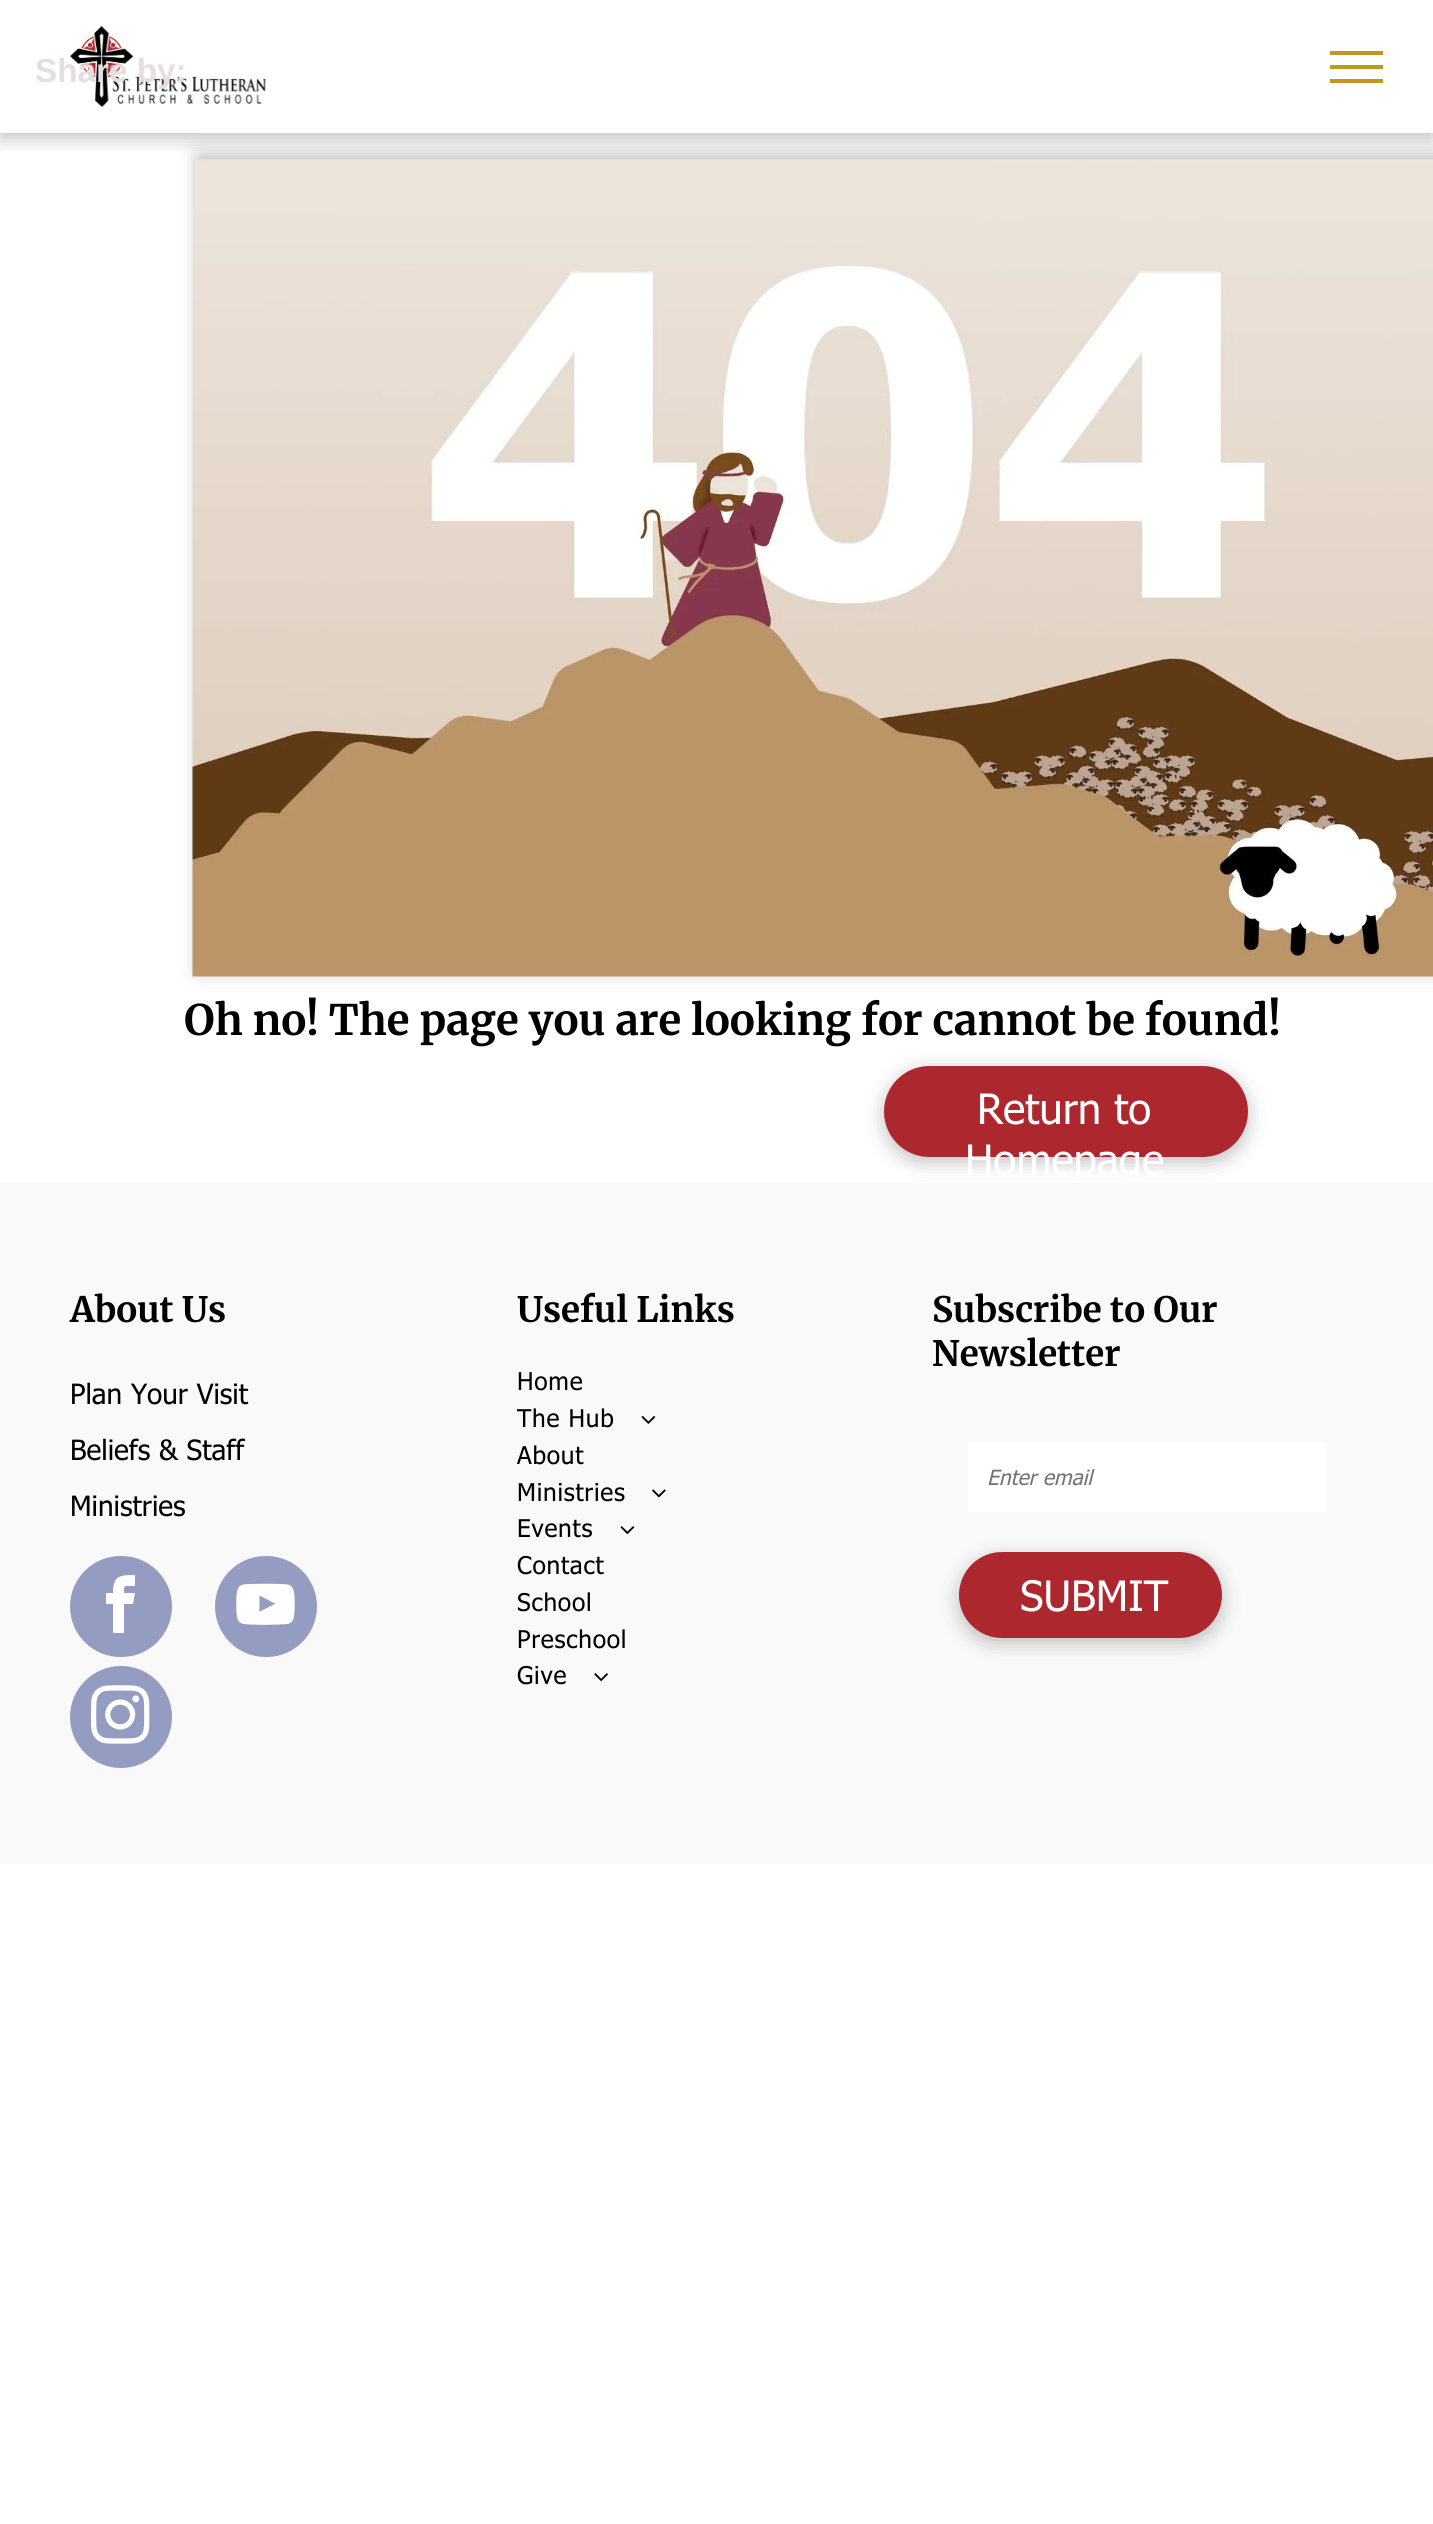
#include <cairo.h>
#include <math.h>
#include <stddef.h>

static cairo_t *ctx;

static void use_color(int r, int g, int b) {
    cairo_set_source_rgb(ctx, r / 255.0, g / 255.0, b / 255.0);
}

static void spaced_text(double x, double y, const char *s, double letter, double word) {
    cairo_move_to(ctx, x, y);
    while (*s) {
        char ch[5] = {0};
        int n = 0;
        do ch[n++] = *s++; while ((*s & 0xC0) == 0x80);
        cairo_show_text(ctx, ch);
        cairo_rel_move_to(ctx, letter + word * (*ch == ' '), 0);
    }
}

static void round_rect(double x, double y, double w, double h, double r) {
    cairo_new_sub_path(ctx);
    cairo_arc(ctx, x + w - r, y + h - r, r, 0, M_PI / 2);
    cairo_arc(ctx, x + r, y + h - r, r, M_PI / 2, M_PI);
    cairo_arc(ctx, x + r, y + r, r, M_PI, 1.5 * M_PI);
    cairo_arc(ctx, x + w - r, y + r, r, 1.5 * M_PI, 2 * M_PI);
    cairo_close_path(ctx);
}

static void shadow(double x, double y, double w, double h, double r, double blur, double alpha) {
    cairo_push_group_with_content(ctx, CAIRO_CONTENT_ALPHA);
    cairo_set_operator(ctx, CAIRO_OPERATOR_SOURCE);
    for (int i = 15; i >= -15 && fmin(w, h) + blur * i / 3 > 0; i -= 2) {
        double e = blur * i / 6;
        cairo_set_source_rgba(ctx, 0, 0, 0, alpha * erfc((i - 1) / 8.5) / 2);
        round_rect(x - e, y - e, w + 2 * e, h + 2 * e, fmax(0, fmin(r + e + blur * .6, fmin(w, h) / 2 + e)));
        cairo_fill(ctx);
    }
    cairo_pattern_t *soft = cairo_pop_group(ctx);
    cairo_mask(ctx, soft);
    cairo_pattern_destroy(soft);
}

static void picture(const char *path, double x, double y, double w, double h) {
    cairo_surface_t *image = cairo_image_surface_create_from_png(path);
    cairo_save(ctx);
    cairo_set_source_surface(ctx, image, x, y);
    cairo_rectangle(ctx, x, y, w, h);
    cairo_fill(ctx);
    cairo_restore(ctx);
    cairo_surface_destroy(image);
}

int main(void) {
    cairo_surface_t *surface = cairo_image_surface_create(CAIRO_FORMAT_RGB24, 1433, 2524);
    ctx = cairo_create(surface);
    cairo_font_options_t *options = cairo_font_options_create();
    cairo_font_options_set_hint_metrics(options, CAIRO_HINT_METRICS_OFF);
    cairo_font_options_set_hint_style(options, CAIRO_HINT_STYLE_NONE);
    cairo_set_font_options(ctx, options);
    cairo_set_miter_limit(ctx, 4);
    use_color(255, 255, 255);
    cairo_paint(ctx);
    use_color(0, 0, 0);
    shadow(198, 154, 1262, 817, 0, 9.5, 0.25);
    picture("img2.png", 192, 159, 1241, 818);
    cairo_save(ctx);
    cairo_rectangle(ctx, 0, 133, 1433, 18);
    cairo_clip(ctx);
    shadow(0, 5, 1433, 133, 0, 9.5, 0.25);
    cairo_restore(ctx);
    picture("img1.png", 70, 26, 196, 81);
    cairo_select_font_face(ctx, "Liberation Sans", CAIRO_FONT_SLANT_NORMAL, CAIRO_FONT_WEIGHT_BOLD);
    cairo_set_font_size(ctx, 33.25);
    use_color(229, 222, 222);
    cairo_move_to(ctx, 35, 82);
    cairo_show_text(ctx, "Share by:");
    use_color(194, 151, 31);
    cairo_rectangle(ctx, 1330, 51, 53, 4);
    cairo_fill(ctx);
    cairo_rectangle(ctx, 1330, 65, 53, 4);
    cairo_fill(ctx);
    cairo_rectangle(ctx, 1330, 79, 53, 4);
    cairo_fill(ctx);
    cairo_select_font_face(ctx, "Merriweather", CAIRO_FONT_SLANT_NORMAL, CAIRO_FONT_WEIGHT_BOLD);
    cairo_set_font_size(ctx, 42);
    use_color(0, 0, 0);
    cairo_move_to(ctx, 184, 1035);
    cairo_show_text(ctx, "Oh no! The page you are looking for cannot be found!");
    use_color(0, 0, 0);
    shadow(884, 1071, 364, 91, 45.5, 9.5, 0.25);
    use_color(173, 39, 46);
    round_rect(884, 1066, 364, 91, 45.5);
    cairo_fill(ctx);
    cairo_select_font_face(ctx, "Tahoma", CAIRO_FONT_SLANT_NORMAL, CAIRO_FONT_WEIGHT_NORMAL);
    use_color(255, 255, 255);
    cairo_move_to(ctx, 977, 1124);
    cairo_show_text(ctx, "Return to");
    cairo_move_to(ctx, 965, 1175);
    cairo_show_text(ctx, "Homepage");
    use_color(249, 249, 249);
    cairo_rectangle(ctx, 0, 1183, 1433, 681);
    cairo_fill(ctx);
    cairo_select_font_face(ctx, "Merriweather", CAIRO_FONT_SLANT_NORMAL, CAIRO_FONT_WEIGHT_BOLD);
    cairo_set_font_size(ctx, 35);
    use_color(0, 0, 0);
    cairo_move_to(ctx, 70, 1322);
    cairo_show_text(ctx, "About Us");
    cairo_select_font_face(ctx, "Tahoma", CAIRO_FONT_SLANT_NORMAL, CAIRO_FONT_WEIGHT_NORMAL);
    cairo_set_font_size(ctx, 28);
    cairo_move_to(ctx, 70, 1404);
    cairo_show_text(ctx, "Plan Your Visit");
    cairo_move_to(ctx, 70, 1460);
    cairo_show_text(ctx, "Beliefs & Staff");
    cairo_move_to(ctx, 70, 1516);
    cairo_show_text(ctx, "Ministries");
    use_color(149, 156, 194);
    round_rect(70, 1556, 102, 101, 50.5);
    cairo_fill(ctx);
    use_color(255, 255, 255);
    cairo_new_path(ctx);
    cairo_move_to(ctx, 126, 1586);
    cairo_line_to(ctx, 135, 1586);
    cairo_line_to(ctx, 135, 1575);
    cairo_curve_to(ctx, 119, 1575, 113, 1576, 113, 1593);
    cairo_line_to(ctx, 106, 1593);
    cairo_line_to(ctx, 106, 1604);
    cairo_line_to(ctx, 113, 1604);
    cairo_line_to(ctx, 113, 1633);
    cairo_line_to(ctx, 124, 1633);
    cairo_line_to(ctx, 124, 1604);
    cairo_line_to(ctx, 133, 1604);
    cairo_line_to(ctx, 135, 1593);
    cairo_line_to(ctx, 124, 1593);
    cairo_curve_to(ctx, 124, 1592, 123, 1586, 126, 1586);
    cairo_close_path(ctx);
    cairo_fill(ctx);
    use_color(149, 156, 194);
    round_rect(215, 1556, 102, 101, 50.5);
    cairo_fill(ctx);
    picture("img3.png", 236, 1583, 59, 42);
    cairo_arc(ctx, 121, 1717, 51, 0, 2 * M_PI);
    cairo_fill(ctx);
    picture("img4.png", 91, 1685, 59, 59);
    cairo_select_font_face(ctx, "Merriweather", CAIRO_FONT_SLANT_NORMAL, CAIRO_FONT_WEIGHT_BOLD);
    cairo_set_font_size(ctx, 35);
    use_color(0, 0, 0);
    cairo_move_to(ctx, 517, 1322);
    cairo_show_text(ctx, "Useful Links");
    cairo_select_font_face(ctx, "Tahoma", CAIRO_FONT_SLANT_NORMAL, CAIRO_FONT_WEIGHT_NORMAL);
    cairo_set_font_size(ctx, 24.5);
    spaced_text(517, 1390, "Home", 0.75, 0);
    spaced_text(517, 1427, "The Hub", 0.75, 0);
    picture("img5.png", 641, 1416, 15, 8);
    spaced_text(517, 1464, "About", 0.75, 0);
    spaced_text(517, 1501, "Ministries", 0.75, 0);
    picture("img6.png", 652, 1489, 14, 9);
    spaced_text(517, 1537, "Events", 0.75, 0);
    picture("img7.png", 620, 1526, 15, 9);
    spaced_text(517, 1574, "Contact", 0.75, 0);
    spaced_text(517, 1611, "School", 0.75, 0);
    spaced_text(517, 1648, "Preschool", 0.75, 0);
    spaced_text(517, 1684, "Give", 0.75, 0);
    picture("img8.png", 594, 1673, 14, 9);
    cairo_select_font_face(ctx, "Merriweather", CAIRO_FONT_SLANT_NORMAL, CAIRO_FONT_WEIGHT_BOLD);
    cairo_set_font_size(ctx, 35);
    cairo_move_to(ctx, 932, 1322);
    cairo_show_text(ctx, "Subscribe to Our");
    cairo_move_to(ctx, 932, 1366);
    cairo_show_text(ctx, "Newsletter");
    use_color(255, 255, 255);
    cairo_rectangle(ctx, 968, 1442, 359, 70);
    cairo_fill(ctx);
    cairo_select_font_face(ctx, "Tahoma", CAIRO_FONT_SLANT_ITALIC, CAIRO_FONT_WEIGHT_NORMAL);
    cairo_set_font_size(ctx, 21);
    use_color(117, 117, 117);
    cairo_move_to(ctx, 987, 1485);
    cairo_show_text(ctx, "Enter email");
    use_color(0, 0, 0);
    shadow(959, 1558, 263, 85, 42.5, 9.5, 0.25);
    use_color(173, 39, 46);
    round_rect(959, 1552, 263, 86, 43);
    cairo_fill(ctx);
    cairo_select_font_face(ctx, "Tahoma", CAIRO_FONT_SLANT_NORMAL, CAIRO_FONT_WEIGHT_NORMAL);
    cairo_set_font_size(ctx, 42);
    use_color(255, 255, 255);
    cairo_move_to(ctx, 1020, 1611);
    cairo_show_text(ctx, "SUBMIT");
    cairo_surface_write_to_png(surface, "result.png");
    cairo_font_options_destroy(options);
    cairo_destroy(ctx);
    cairo_surface_destroy(surface);
    return 0;
}
